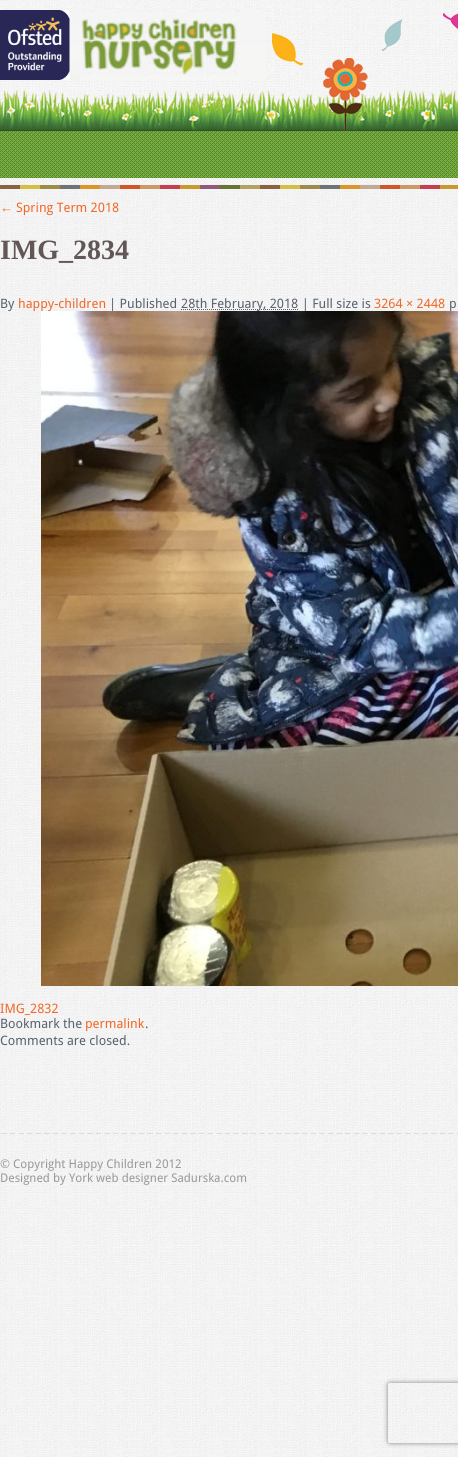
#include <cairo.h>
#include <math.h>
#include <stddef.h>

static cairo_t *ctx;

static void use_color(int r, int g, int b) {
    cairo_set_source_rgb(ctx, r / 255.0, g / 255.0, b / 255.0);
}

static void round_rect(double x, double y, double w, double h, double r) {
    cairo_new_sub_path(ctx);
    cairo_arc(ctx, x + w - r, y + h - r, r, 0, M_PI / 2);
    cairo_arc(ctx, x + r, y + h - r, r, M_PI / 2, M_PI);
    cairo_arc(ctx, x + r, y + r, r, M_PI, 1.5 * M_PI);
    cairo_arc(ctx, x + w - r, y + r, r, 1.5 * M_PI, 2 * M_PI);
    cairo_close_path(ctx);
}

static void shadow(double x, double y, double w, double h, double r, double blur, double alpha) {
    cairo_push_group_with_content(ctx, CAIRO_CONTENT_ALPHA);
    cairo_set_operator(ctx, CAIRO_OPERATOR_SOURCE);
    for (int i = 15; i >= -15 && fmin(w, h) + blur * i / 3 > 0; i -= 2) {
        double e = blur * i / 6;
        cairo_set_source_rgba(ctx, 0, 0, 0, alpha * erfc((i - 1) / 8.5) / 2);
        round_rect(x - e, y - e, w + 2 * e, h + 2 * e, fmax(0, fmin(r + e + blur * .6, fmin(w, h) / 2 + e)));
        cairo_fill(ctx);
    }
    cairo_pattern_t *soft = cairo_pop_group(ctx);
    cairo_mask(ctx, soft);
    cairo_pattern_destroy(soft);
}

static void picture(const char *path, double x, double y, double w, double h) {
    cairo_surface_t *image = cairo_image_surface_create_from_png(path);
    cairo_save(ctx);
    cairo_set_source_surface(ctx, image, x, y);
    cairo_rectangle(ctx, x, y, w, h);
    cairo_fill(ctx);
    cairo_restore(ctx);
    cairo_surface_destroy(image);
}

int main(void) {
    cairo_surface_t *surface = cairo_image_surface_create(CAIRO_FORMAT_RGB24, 458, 1457);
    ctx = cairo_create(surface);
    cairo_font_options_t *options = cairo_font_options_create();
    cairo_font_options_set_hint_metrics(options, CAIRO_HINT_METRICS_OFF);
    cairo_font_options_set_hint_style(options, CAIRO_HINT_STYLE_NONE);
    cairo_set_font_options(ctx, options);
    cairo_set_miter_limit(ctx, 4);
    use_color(255, 255, 255);
    cairo_paint(ctx);
    picture("img1.png", 0, 178, 458, 1279);
    picture("img2.png", 0, 0, 458, 131);
    picture("img3.png", 0, 10, 272, 70);
    picture("img4.png", 0, 131, 458, 47);
    picture("img5.png", 0, 185, 458, 4);
    cairo_select_font_face(ctx, "Liberation Serif", CAIRO_FONT_SLANT_NORMAL, CAIRO_FONT_WEIGHT_NORMAL);
    cairo_set_font_size(ctx, 13);
    use_color(241, 104, 39);
    cairo_move_to(ctx, 0, 212);
    cairo_show_text(ctx, "←");
    cairo_select_font_face(ctx, "Droid Sans", CAIRO_FONT_SLANT_NORMAL, CAIRO_FONT_WEIGHT_NORMAL);
    cairo_move_to(ctx, 16, 212);
    cairo_show_text(ctx, "Spring Term 2018");
    cairo_select_font_face(ctx, "Liberation Serif", CAIRO_FONT_SLANT_NORMAL, CAIRO_FONT_WEIGHT_BOLD);
    cairo_set_font_size(ctx, 28);
    use_color(98, 86, 86);
    cairo_move_to(ctx, 0, 259);
    cairo_show_text(ctx, "IMG_2834");
    cairo_select_font_face(ctx, "Droid Sans", CAIRO_FONT_SLANT_NORMAL, CAIRO_FONT_WEIGHT_NORMAL);
    cairo_set_font_size(ctx, 13);
    use_color(88, 98, 110);
    cairo_move_to(ctx, 0, 308);
    cairo_show_text(ctx, "By");
    use_color(241, 104, 39);
    cairo_move_to(ctx, 18, 308);
    cairo_show_text(ctx, "happy-children");
    use_color(88, 98, 110);
    cairo_move_to(ctx, 109, 308);
    cairo_show_text(ctx, "| Published");
    cairo_new_path(ctx);
    cairo_move_to(ctx, 181, 309.5);
    cairo_line_to(ctx, 298, 309.5);
    cairo_set_line_width(ctx, 1);
    cairo_set_dash(ctx, (double[]){1, 1}, 2, 0);
    cairo_stroke(ctx);
    cairo_move_to(ctx, 181, 308);
    cairo_show_text(ctx, "28th February, 2018 | Full size is");
    use_color(241, 104, 39);
    cairo_move_to(ctx, 374, 308);
    cairo_show_text(ctx, "3264 × 2448");
    use_color(88, 98, 110);
    cairo_move_to(ctx, 449, 308);
    cairo_show_text(ctx, "p");
    picture("img6.png", 41, 311, 417, 675);
    use_color(241, 104, 39);
    cairo_move_to(ctx, 0, 1013);
    cairo_show_text(ctx, "IMG_2832");
    use_color(88, 98, 110);
    cairo_move_to(ctx, 0, 1028);
    cairo_show_text(ctx, "Bookmark the");
    use_color(241, 104, 39);
    cairo_move_to(ctx, 85, 1028);
    cairo_show_text(ctx, "permalink");
    use_color(88, 98, 110);
    cairo_move_to(ctx, 145, 1028);
    cairo_show_text(ctx, ".");
    cairo_move_to(ctx, 0, 1045);
    cairo_show_text(ctx, "Comments are closed.");
    picture("img7.png", 1, 1133, 457, 1);
    cairo_set_font_size(ctx, 12);
    use_color(153, 153, 153);
    cairo_move_to(ctx, 0, 1168);
    cairo_show_text(ctx, "© Copyright Happy Children 2012");
    cairo_move_to(ctx, 0, 1182);
    cairo_show_text(ctx, "Designed by York web designer Sadurska.com");
    cairo_save(ctx);
    cairo_set_fill_rule(ctx, CAIRO_FILL_RULE_EVEN_ODD);
    cairo_new_path(ctx);
    cairo_move_to(ctx, 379, 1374);
    cairo_line_to(ctx, 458, 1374);
    cairo_line_to(ctx, 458, 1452);
    cairo_line_to(ctx, 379, 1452);
    cairo_close_path(ctx);
    cairo_move_to(ctx, 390, 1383);
    cairo_line_to(ctx, 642, 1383);
    cairo_curve_to(ctx, 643, 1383, 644, 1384, 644, 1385);
    cairo_line_to(ctx, 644, 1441);
    cairo_curve_to(ctx, 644, 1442, 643, 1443, 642, 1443);
    cairo_line_to(ctx, 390, 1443);
    cairo_curve_to(ctx, 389, 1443, 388, 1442, 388, 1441);
    cairo_line_to(ctx, 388, 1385);
    cairo_curve_to(ctx, 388, 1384, 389, 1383, 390, 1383);
    cairo_close_path(ctx);
    cairo_clip(ctx);
    use_color(128, 128, 128);
    shadow(388, 1383, 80, 60, 2, 2.5, 1);
    cairo_restore(ctx);
    cairo_surface_write_to_png(surface, "result.png");
    cairo_font_options_destroy(options);
    cairo_destroy(ctx);
    cairo_surface_destroy(surface);
    return 0;
}
